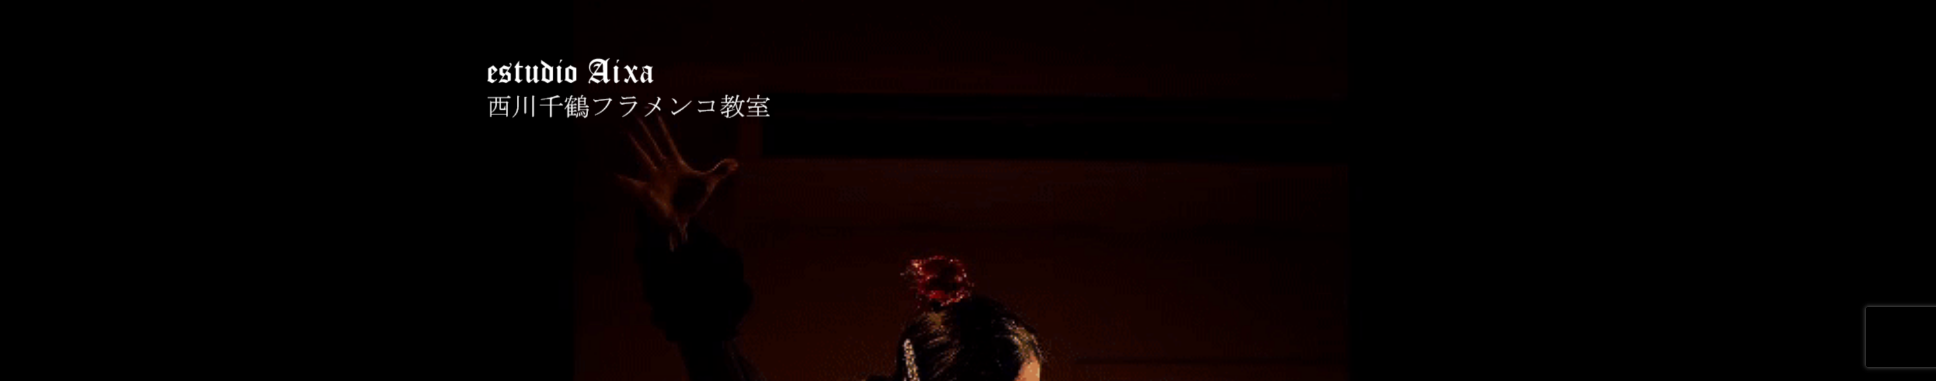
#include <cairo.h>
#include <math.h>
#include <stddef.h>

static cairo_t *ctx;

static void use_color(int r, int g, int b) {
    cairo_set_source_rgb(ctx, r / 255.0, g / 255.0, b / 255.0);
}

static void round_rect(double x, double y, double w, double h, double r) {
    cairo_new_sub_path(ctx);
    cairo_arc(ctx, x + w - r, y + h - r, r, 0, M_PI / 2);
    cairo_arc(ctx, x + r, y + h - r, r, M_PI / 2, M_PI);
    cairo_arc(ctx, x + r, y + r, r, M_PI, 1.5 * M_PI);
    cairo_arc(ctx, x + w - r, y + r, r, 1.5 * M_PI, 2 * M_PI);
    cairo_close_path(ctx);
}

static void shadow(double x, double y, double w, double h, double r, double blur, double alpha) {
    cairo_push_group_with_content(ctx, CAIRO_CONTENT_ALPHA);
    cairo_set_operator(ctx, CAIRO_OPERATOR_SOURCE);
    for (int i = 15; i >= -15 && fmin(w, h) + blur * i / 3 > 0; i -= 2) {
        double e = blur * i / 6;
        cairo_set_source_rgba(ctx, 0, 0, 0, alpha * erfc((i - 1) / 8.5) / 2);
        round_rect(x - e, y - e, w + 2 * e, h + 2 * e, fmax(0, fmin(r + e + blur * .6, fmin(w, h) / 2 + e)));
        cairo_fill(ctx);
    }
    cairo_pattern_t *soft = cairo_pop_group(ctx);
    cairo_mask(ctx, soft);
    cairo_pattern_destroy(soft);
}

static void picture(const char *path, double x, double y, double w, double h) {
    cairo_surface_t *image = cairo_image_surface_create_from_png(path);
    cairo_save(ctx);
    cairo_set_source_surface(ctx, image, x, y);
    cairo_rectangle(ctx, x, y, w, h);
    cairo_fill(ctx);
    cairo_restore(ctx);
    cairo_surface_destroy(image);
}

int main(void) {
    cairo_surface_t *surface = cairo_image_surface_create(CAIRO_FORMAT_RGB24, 1936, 381);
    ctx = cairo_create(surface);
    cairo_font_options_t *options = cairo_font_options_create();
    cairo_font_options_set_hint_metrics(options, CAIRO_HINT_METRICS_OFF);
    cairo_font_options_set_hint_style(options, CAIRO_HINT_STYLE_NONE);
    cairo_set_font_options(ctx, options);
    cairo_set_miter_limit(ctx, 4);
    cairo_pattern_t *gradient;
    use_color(255, 255, 255);
    cairo_paint(ctx);
    picture("img1.png", 0, 0, 1936, 381);
    cairo_save(ctx);
    cairo_set_fill_rule(ctx, CAIRO_FILL_RULE_EVEN_ODD);
    cairo_new_path(ctx);
    cairo_move_to(ctx, 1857, 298);
    cairo_line_to(ctx, 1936, 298);
    cairo_line_to(ctx, 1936, 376);
    cairo_line_to(ctx, 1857, 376);
    cairo_close_path(ctx);
    cairo_move_to(ctx, 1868, 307);
    cairo_line_to(ctx, 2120, 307);
    cairo_curve_to(ctx, 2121, 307, 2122, 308, 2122, 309);
    cairo_line_to(ctx, 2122, 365);
    cairo_curve_to(ctx, 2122, 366, 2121, 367, 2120, 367);
    cairo_line_to(ctx, 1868, 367);
    cairo_curve_to(ctx, 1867, 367, 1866, 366, 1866, 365);
    cairo_line_to(ctx, 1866, 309);
    cairo_curve_to(ctx, 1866, 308, 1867, 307, 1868, 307);
    cairo_close_path(ctx);
    cairo_clip(ctx);
    use_color(128, 128, 128);
    shadow(1866, 307, 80, 60, 2, 2.5, 1);
    cairo_restore(ctx);
    gradient = cairo_pattern_create_linear(968, 0, 968, 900);
    cairo_pattern_add_color_stop_rgba(gradient, 0, 0, 0, 0, 0);
    cairo_pattern_add_color_stop_rgba(gradient, 0.75, 0, 0, 0, 0.3);
    cairo_pattern_add_color_stop_rgba(gradient, 1, 0, 0, 0, 0.3);
    cairo_set_source(ctx, gradient);
    cairo_pattern_destroy(gradient);
    cairo_rectangle(ctx, 575, 107, 1361, 274);
    cairo_fill(ctx);
    picture("img2.png", 487, 57, 283, 62);
    cairo_surface_write_to_png(surface, "result.png");
    cairo_font_options_destroy(options);
    cairo_destroy(ctx);
    cairo_surface_destroy(surface);
    return 0;
}
